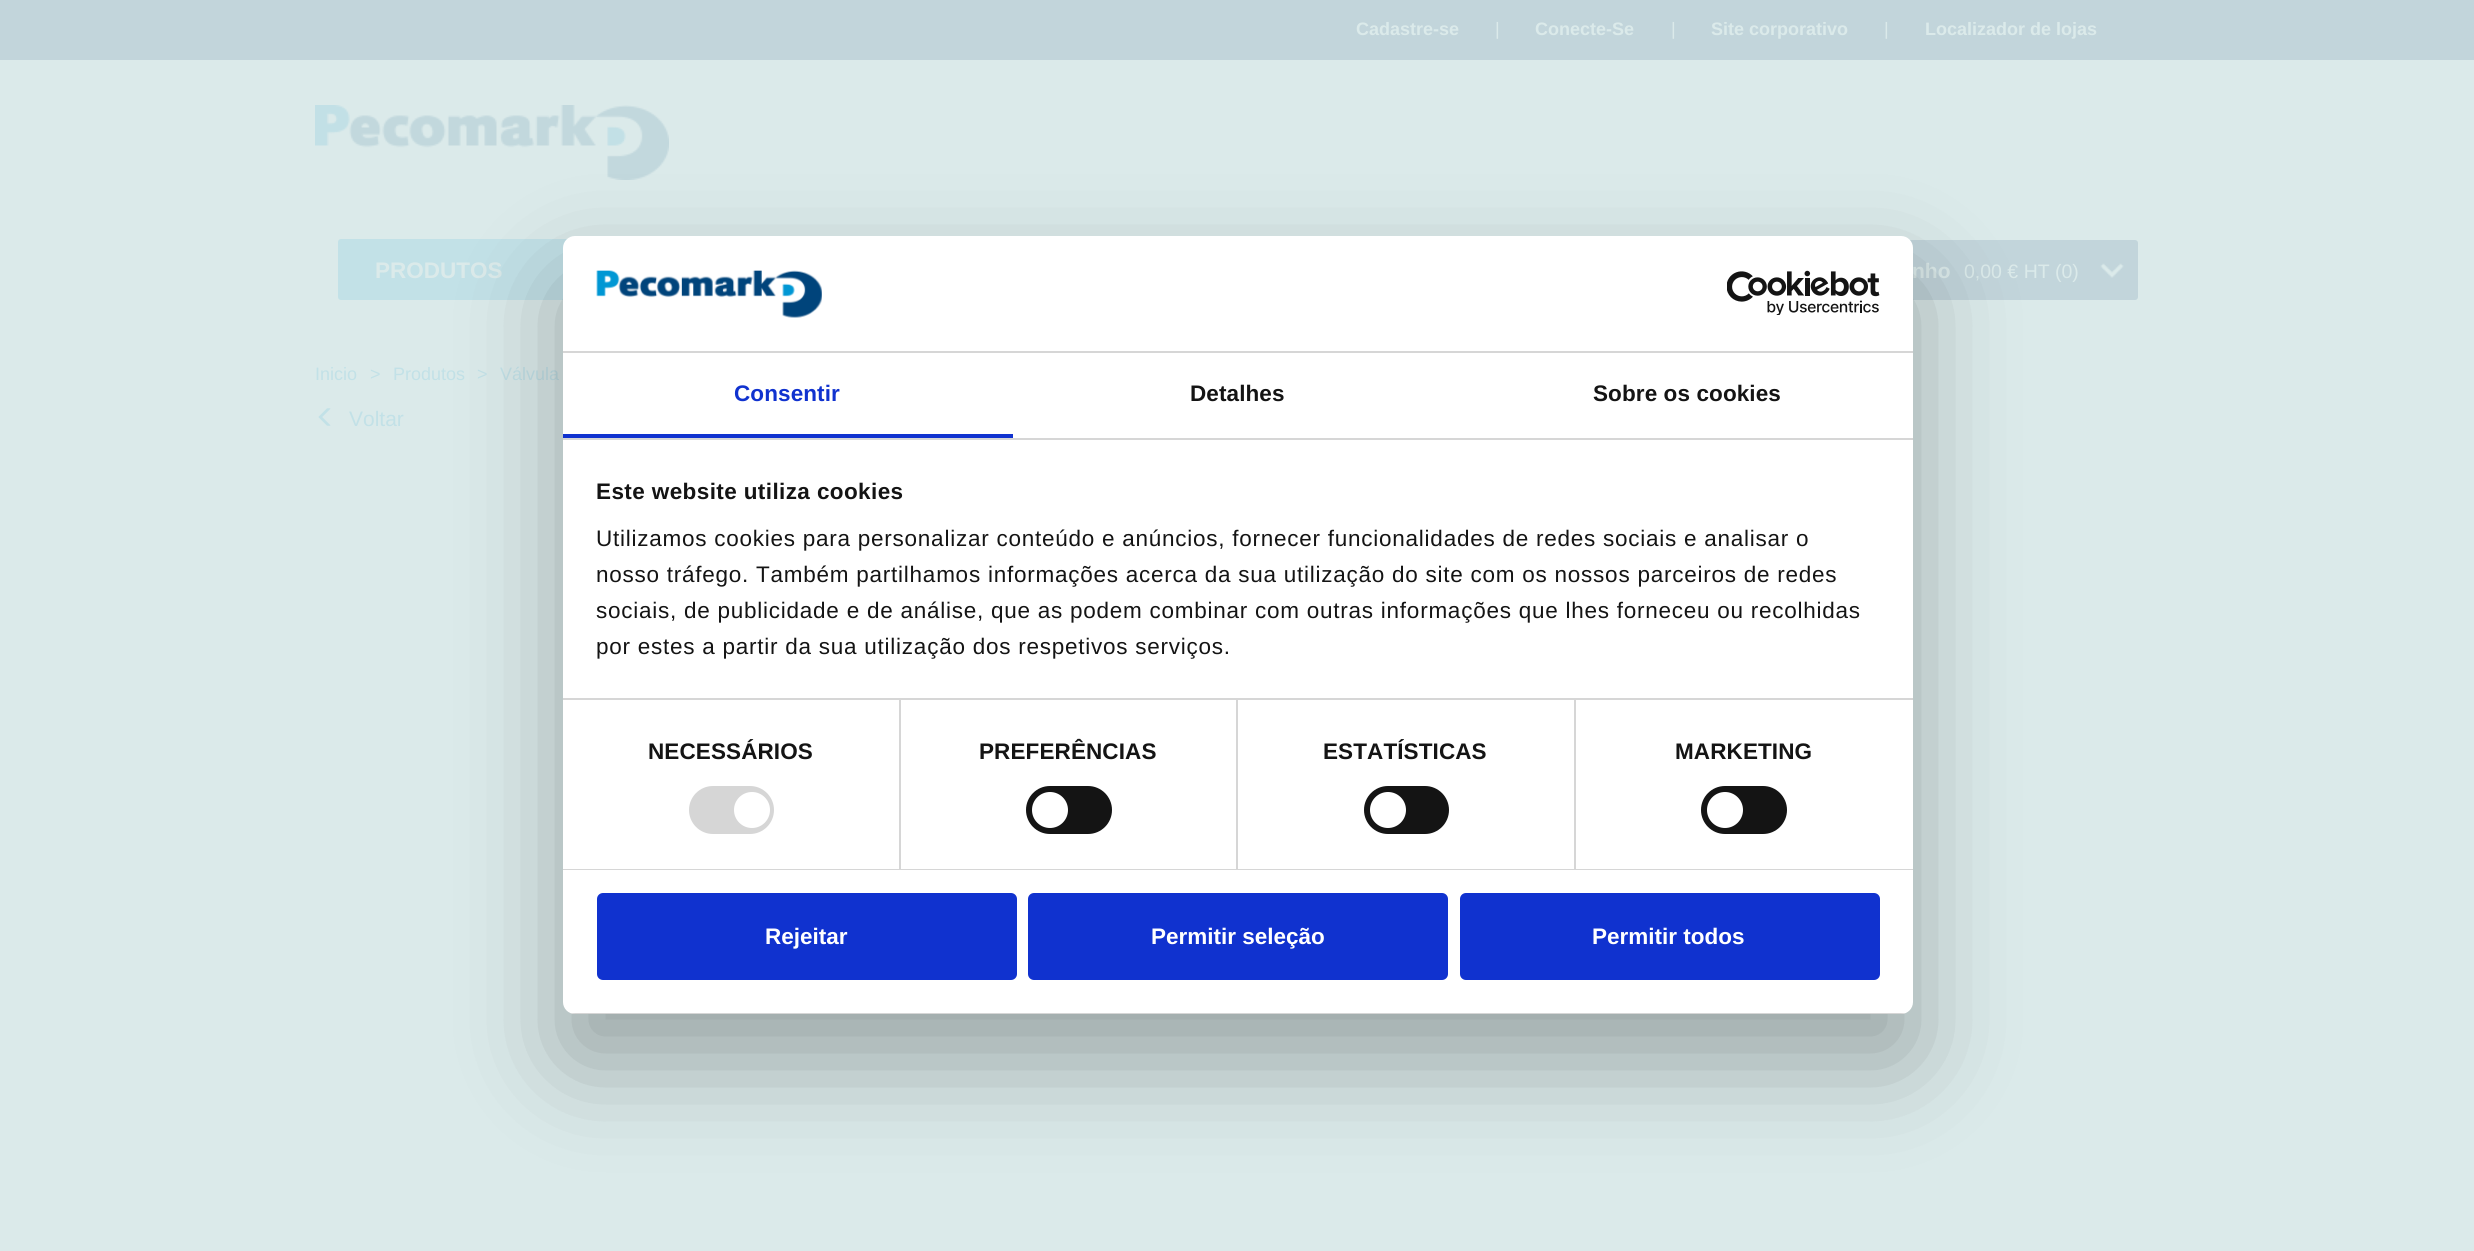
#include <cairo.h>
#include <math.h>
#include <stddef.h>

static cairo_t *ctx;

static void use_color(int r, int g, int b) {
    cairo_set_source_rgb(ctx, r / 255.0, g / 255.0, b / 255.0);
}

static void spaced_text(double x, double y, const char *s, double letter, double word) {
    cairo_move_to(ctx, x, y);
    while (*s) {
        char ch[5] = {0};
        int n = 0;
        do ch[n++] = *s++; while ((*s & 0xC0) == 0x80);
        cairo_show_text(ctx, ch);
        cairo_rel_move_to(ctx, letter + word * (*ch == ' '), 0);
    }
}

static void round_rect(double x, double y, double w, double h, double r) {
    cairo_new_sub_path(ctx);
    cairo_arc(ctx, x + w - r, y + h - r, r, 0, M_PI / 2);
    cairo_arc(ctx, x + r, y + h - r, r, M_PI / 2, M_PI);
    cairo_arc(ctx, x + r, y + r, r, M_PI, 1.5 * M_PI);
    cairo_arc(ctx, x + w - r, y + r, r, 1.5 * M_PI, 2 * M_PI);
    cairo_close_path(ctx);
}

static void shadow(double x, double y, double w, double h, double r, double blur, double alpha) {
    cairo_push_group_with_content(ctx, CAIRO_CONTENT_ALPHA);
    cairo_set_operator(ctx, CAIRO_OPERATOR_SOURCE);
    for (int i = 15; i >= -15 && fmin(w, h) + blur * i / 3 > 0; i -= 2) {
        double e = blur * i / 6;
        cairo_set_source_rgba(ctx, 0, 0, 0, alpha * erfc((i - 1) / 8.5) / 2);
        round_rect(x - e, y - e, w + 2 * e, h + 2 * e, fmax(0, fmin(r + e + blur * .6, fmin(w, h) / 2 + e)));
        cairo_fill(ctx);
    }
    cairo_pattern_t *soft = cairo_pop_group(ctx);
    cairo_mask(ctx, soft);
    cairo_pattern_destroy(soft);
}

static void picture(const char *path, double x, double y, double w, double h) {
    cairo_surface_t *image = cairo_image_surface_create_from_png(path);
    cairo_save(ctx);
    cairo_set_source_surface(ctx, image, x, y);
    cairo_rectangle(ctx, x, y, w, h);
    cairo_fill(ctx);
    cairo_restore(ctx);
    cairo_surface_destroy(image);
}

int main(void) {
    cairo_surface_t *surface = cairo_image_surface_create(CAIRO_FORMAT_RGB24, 2474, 1251);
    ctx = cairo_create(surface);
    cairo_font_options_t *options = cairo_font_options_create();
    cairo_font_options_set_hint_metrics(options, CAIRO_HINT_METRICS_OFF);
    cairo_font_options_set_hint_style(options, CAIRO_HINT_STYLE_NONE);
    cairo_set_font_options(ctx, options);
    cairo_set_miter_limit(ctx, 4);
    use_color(219, 234, 234);
    cairo_paint(ctx);
    use_color(194, 213, 219);
    cairo_rectangle(ctx, 0, 0, 2474, 60);
    cairo_fill(ctx);
    cairo_select_font_face(ctx, "Liberation Sans", CAIRO_FONT_SLANT_NORMAL, CAIRO_FONT_WEIGHT_BOLD);
    cairo_set_font_size(ctx, 18);
    use_color(219, 234, 234);
    cairo_move_to(ctx, 1356, 35);
    cairo_show_text(ctx, "Cadastre-se");
    cairo_select_font_face(ctx, "Liberation Sans", CAIRO_FONT_SLANT_NORMAL, CAIRO_FONT_WEIGHT_NORMAL);
    cairo_move_to(ctx, 1495, 35);
    cairo_show_text(ctx, "|");
    cairo_select_font_face(ctx, "Liberation Sans", CAIRO_FONT_SLANT_NORMAL, CAIRO_FONT_WEIGHT_BOLD);
    cairo_move_to(ctx, 1535, 35);
    cairo_show_text(ctx, "Conecte-Se");
    cairo_select_font_face(ctx, "Liberation Sans", CAIRO_FONT_SLANT_NORMAL, CAIRO_FONT_WEIGHT_NORMAL);
    cairo_move_to(ctx, 1671, 35);
    cairo_show_text(ctx, "|");
    cairo_select_font_face(ctx, "Liberation Sans", CAIRO_FONT_SLANT_NORMAL, CAIRO_FONT_WEIGHT_BOLD);
    cairo_move_to(ctx, 1711, 35);
    cairo_show_text(ctx, "Site corporativo");
    cairo_select_font_face(ctx, "Liberation Sans", CAIRO_FONT_SLANT_NORMAL, CAIRO_FONT_WEIGHT_NORMAL);
    cairo_move_to(ctx, 1884, 35);
    cairo_show_text(ctx, "|");
    cairo_select_font_face(ctx, "Liberation Sans", CAIRO_FONT_SLANT_NORMAL, CAIRO_FONT_WEIGHT_BOLD);
    cairo_move_to(ctx, 1925, 35);
    cairo_show_text(ctx, "Localizador de lojas");
    picture("img1.png", 315, 105, 354, 75);
    use_color(194, 225, 231);
    round_rect(338, 239, 307, 61, 3);
    cairo_fill(ctx);
    cairo_set_font_size(ctx, 22.5);
    use_color(219, 234, 234);
    cairo_move_to(ctx, 375, 278);
    cairo_show_text(ctx, "PRODUTOS");
    use_color(194, 213, 219);
    round_rect(1796, 240, 342, 60, 3);
    cairo_fill(ctx);
    picture("img2.png", 2100, 263, 24, 15);
    cairo_set_font_size(ctx, 21);
    use_color(219, 234, 234);
    cairo_move_to(ctx, 1912, 278);
    cairo_show_text(ctx, "nho");
    cairo_select_font_face(ctx, "Liberation Sans", CAIRO_FONT_SLANT_NORMAL, CAIRO_FONT_WEIGHT_NORMAL);
    cairo_set_font_size(ctx, 19.5);
    cairo_move_to(ctx, 1964, 278);
    cairo_show_text(ctx, "0,00 € HT");
    cairo_move_to(ctx, 2055, 278);
    cairo_show_text(ctx, "(0)");
    cairo_set_font_size(ctx, 18);
    use_color(194, 225, 231);
    cairo_move_to(ctx, 315, 380);
    cairo_show_text(ctx, "Inicio");
    cairo_move_to(ctx, 370, 380);
    cairo_show_text(ctx, ">");
    cairo_move_to(ctx, 393, 380);
    cairo_show_text(ctx, "Produtos");
    cairo_move_to(ctx, 477, 380);
    cairo_show_text(ctx, ">");
    cairo_move_to(ctx, 500, 380);
    cairo_show_text(ctx, "Válvula");
    picture("img3.png", 318, 408, 13, 18);
    cairo_set_font_size(ctx, 21);
    cairo_move_to(ctx, 349, 426);
    cairo_show_text(ctx, "Voltar");
    use_color(0, 0, 0);
    shadow(563, 284, 1350, 778, 12, 51, 0.3);
    use_color(255, 255, 255);
    round_rect(563, 236, 1350, 778, 12);
    cairo_fill(ctx);
    use_color(214, 214, 214);
    cairo_rectangle(ctx, 563, 351, 1350, 2);
    cairo_fill(ctx);
    picture("img4.png", 596, 270, 226, 48);
    picture("img5.png", 1727, 270, 153, 45);
    cairo_rectangle(ctx, 563, 438, 1350, 2);
    cairo_fill(ctx);
    use_color(16, 50, 207);
    cairo_rectangle(ctx, 563, 434, 450, 4);
    cairo_fill(ctx);
    cairo_select_font_face(ctx, "Liberation Sans", CAIRO_FONT_SLANT_NORMAL, CAIRO_FONT_WEIGHT_BOLD);
    cairo_set_font_size(ctx, 22.5);
    spaced_text(734, 401, "Consentir", 0.1, 0);
    use_color(20, 20, 20);
    spaced_text(1190, 401, "Detalhes", 0.1, 0);
    spaced_text(1593, 401, "Sobre os cookies", 0.1, 0);
    use_color(214, 214, 214);
    cairo_rectangle(ctx, 899, 699, 2, 170);
    cairo_fill(ctx);
    cairo_rectangle(ctx, 1236, 699, 2, 170);
    cairo_fill(ctx);
    cairo_rectangle(ctx, 1574, 699, 2, 170);
    cairo_fill(ctx);
    cairo_rectangle(ctx, 563, 698, 1350, 2);
    cairo_fill(ctx);
    use_color(20, 20, 20);
    spaced_text(596, 499, "Este website utiliza cookies", 0.4, 0);
    cairo_select_font_face(ctx, "Liberation Sans", CAIRO_FONT_SLANT_NORMAL, CAIRO_FONT_WEIGHT_NORMAL);
    spaced_text(596, 546, "Utilizamos cookies para personalizar conteúdo e anúncios, fornecer funcionalidades de redes sociais e analisar o", 0.75, 0);
    spaced_text(596, 582, "nosso tráfego. Também partilhamos informações acerca da sua utilização do site com os nossos parceiros de redes", 0.75, 0);
    spaced_text(596, 618, "sociais, de publicidade e de análise, que as podem combinar com outras informações que lhes forneceu ou recolhidas", 0.75, 0);
    spaced_text(596, 654, "por estes a partir da sua utilização dos respetivos serviços.", 0.75, 0);
    use_color(214, 214, 214);
    cairo_rectangle(ctx, 563, 869, 1350, 1);
    cairo_fill(ctx);
    cairo_select_font_face(ctx, "Liberation Sans", CAIRO_FONT_SLANT_NORMAL, CAIRO_FONT_WEIGHT_BOLD);
    use_color(20, 20, 20);
    spaced_text(648, 759, "NECESSÁRIOS", 0.1, 0);
    use_color(214, 214, 214);
    round_rect(689, 786, 85, 48, 24);
    cairo_fill(ctx);
    use_color(255, 255, 255);
    cairo_arc(ctx, 752, 810, 18, 0, 2 * M_PI);
    cairo_fill(ctx);
    use_color(20, 20, 20);
    spaced_text(979, 759, "PREFERÊNCIAS", 0.1, 0);
    round_rect(1026, 786, 86, 48, 24);
    cairo_fill(ctx);
    use_color(255, 255, 255);
    cairo_arc(ctx, 1050, 810, 18, 0, 2 * M_PI);
    cairo_fill(ctx);
    use_color(20, 20, 20);
    spaced_text(1323, 759, "ESTATÍSTICAS", 0.1, 0);
    round_rect(1364, 786, 85, 48, 24);
    cairo_fill(ctx);
    use_color(255, 255, 255);
    cairo_arc(ctx, 1388, 810, 18, 0, 2 * M_PI);
    cairo_fill(ctx);
    use_color(20, 20, 20);
    spaced_text(1675, 759, "MARKETING", 0.1, 0);
    round_rect(1701, 786, 86, 48, 24);
    cairo_fill(ctx);
    use_color(255, 255, 255);
    cairo_arc(ctx, 1725, 810, 18, 0, 2 * M_PI);
    cairo_fill(ctx);
    cairo_save(ctx);
    round_rect(563, 236, 1350, 778, 12);
    cairo_clip(ctx);
    use_color(214, 214, 214);
    cairo_rectangle(ctx, 563, 1013, 1350, 1);
    cairo_fill(ctx);
    cairo_restore(ctx);
    use_color(16, 50, 207);
    round_rect(598.5, 894.5, 417, 84, 4.5);
    cairo_fill_preserve(ctx);
    cairo_set_line_width(ctx, 3);
    cairo_stroke(ctx);
    use_color(255, 255, 255);
    cairo_move_to(ctx, 765, 944);
    cairo_show_text(ctx, "Rejeitar");
    use_color(16, 50, 207);
    round_rect(1029.5, 894.5, 417, 84, 4.5);
    cairo_fill_preserve(ctx);
    cairo_stroke(ctx);
    use_color(255, 255, 255);
    cairo_move_to(ctx, 1151, 944);
    cairo_show_text(ctx, "Permitir seleção");
    use_color(16, 50, 207);
    round_rect(1461.5, 894.5, 417, 84, 4.5);
    cairo_fill_preserve(ctx);
    cairo_stroke(ctx);
    use_color(255, 255, 255);
    cairo_move_to(ctx, 1592, 944);
    cairo_show_text(ctx, "Permitir todos");
    cairo_surface_write_to_png(surface, "result.png");
    cairo_font_options_destroy(options);
    cairo_destroy(ctx);
    cairo_surface_destroy(surface);
    return 0;
}
